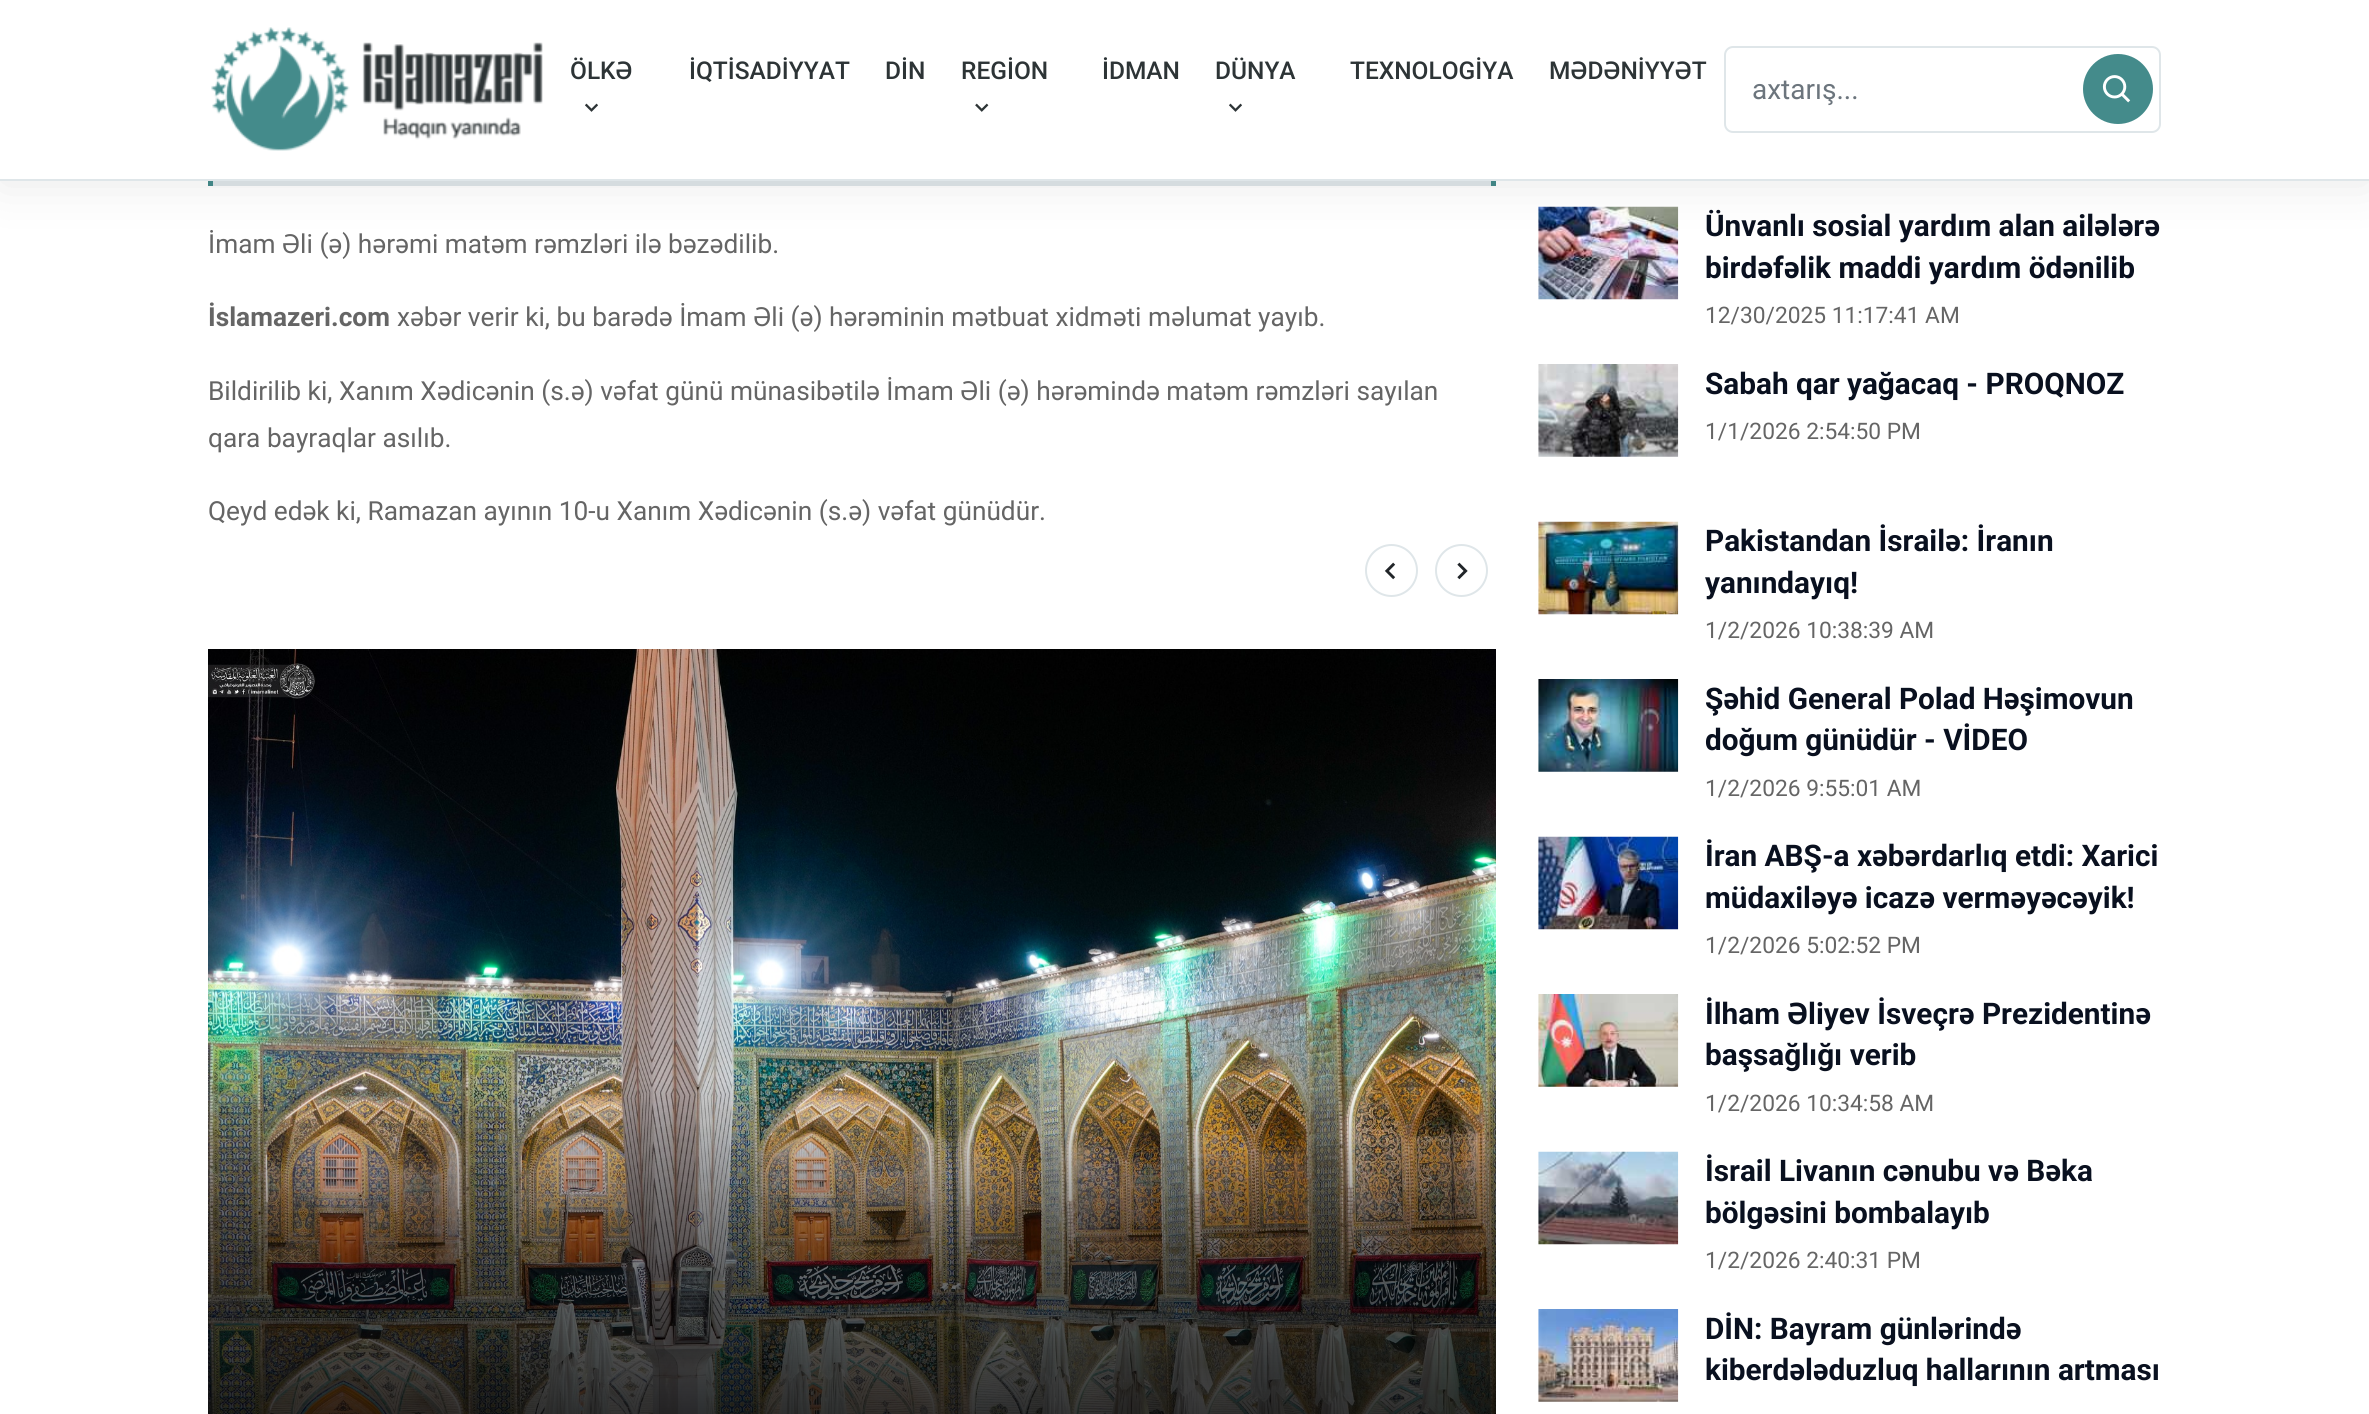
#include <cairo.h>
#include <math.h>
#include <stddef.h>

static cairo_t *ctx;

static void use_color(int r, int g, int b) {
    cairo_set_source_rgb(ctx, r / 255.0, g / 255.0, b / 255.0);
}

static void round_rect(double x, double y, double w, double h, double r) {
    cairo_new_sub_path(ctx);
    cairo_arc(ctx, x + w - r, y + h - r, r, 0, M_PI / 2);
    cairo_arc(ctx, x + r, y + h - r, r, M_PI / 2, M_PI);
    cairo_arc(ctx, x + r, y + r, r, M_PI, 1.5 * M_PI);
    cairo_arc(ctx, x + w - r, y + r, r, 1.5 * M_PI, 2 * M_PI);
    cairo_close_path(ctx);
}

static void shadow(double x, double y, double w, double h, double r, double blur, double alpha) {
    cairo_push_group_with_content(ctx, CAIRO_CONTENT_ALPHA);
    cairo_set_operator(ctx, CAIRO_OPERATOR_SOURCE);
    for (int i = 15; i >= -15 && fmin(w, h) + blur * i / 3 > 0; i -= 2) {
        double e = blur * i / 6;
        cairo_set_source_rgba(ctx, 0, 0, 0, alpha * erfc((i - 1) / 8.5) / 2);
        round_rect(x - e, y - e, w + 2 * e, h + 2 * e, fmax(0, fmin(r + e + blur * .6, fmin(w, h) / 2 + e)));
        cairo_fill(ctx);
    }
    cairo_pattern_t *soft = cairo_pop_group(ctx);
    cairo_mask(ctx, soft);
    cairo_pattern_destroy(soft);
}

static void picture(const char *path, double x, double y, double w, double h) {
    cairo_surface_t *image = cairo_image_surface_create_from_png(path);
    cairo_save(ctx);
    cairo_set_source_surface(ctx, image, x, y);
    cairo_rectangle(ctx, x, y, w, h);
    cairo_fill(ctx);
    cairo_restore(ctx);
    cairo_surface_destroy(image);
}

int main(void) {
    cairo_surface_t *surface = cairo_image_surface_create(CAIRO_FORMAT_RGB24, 2369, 1414);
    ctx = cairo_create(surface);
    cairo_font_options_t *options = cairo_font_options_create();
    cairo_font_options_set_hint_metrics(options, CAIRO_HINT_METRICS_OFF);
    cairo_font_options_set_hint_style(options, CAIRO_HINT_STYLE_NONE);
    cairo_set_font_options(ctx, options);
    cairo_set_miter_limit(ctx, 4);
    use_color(255, 255, 255);
    cairo_paint(ctx);
    use_color(223, 230, 233);
    cairo_rectangle(ctx, 213, 181, 1278, 5);
    cairo_fill(ctx);
    use_color(68, 139, 139);
    cairo_rectangle(ctx, 1491, 181, 5, 5);
    cairo_fill(ctx);
    cairo_rectangle(ctx, 208, 181, 5, 5);
    cairo_fill(ctx);
    picture("img8.png", 1538, 206, 141, 94);
    use_color(0, 0, 0);
    shadow(0, 4, 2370, 180, 0, 24.5, 0.09);
    use_color(255, 255, 255);
    cairo_rectangle(ctx, 0, 0, 2369, 179);
    cairo_fill(ctx);
    use_color(223, 230, 233);
    cairo_rectangle(ctx, 0, 179, 2369, 2);
    cairo_fill(ctx);
    picture("img1.png", 211, 27, 332, 124);
    cairo_select_font_face(ctx, "Roboto Medium", CAIRO_FONT_SLANT_NORMAL, CAIRO_FONT_WEIGHT_NORMAL);
    cairo_set_font_size(ctx, 24.5);
    use_color(45, 52, 54);
    cairo_move_to(ctx, 570, 79);
    cairo_show_text(ctx, "ÖLKƏ");
    picture("img2.png", 585, 103, 13, 9);
    cairo_move_to(ctx, 689, 79);
    cairo_show_text(ctx, "İQTİSADİYYAT");
    cairo_move_to(ctx, 885, 79);
    cairo_show_text(ctx, "DİN");
    cairo_move_to(ctx, 961, 79);
    cairo_show_text(ctx, "REGİON");
    picture("img3.png", 975, 103, 14, 9);
    cairo_move_to(ctx, 1102, 79);
    cairo_show_text(ctx, "İDMAN");
    cairo_move_to(ctx, 1215, 79);
    cairo_show_text(ctx, "DÜNYA");
    picture("img2.png", 1229, 103, 13, 9);
    cairo_move_to(ctx, 1350, 79);
    cairo_show_text(ctx, "TEXNOLOGİYA");
    cairo_move_to(ctx, 1549, 79);
    cairo_show_text(ctx, "MƏDƏNİYYƏT");
    round_rect(1725, 47, 435, 85, 8);
    use_color(223, 230, 233);
    cairo_stroke(ctx);
    cairo_select_font_face(ctx, "Roboto", CAIRO_FONT_SLANT_NORMAL, CAIRO_FONT_WEIGHT_NORMAL);
    cairo_set_font_size(ctx, 28);
    use_color(108, 117, 125);
    cairo_move_to(ctx, 1752, 99);
    cairo_show_text(ctx, "axtarış...");
    use_color(68, 139, 139);
    cairo_new_path(ctx);
    cairo_arc(ctx, 2118, 89, 35, 0, 2 * M_PI);
    cairo_fill(ctx);
    picture("img4.png", 2102, 75, 29, 28);
    cairo_set_font_size(ctx, 26.25);
    use_color(101, 101, 101);
    cairo_move_to(ctx, 208, 253);
    cairo_show_text(ctx, "İmam Əli (ə) hərəmi matəm rəmzləri ilə bəzədilib.");
    cairo_select_font_face(ctx, "Roboto", CAIRO_FONT_SLANT_NORMAL, CAIRO_FONT_WEIGHT_BOLD);
    cairo_move_to(ctx, 208, 326);
    cairo_show_text(ctx, "İslamazeri.com");
    cairo_select_font_face(ctx, "Roboto", CAIRO_FONT_SLANT_NORMAL, CAIRO_FONT_WEIGHT_NORMAL);
    cairo_move_to(ctx, 397, 326);
    cairo_show_text(ctx, "xəbər verir ki, bu barədə İmam Əli (ə) hərəminin mətbuat xidməti məlumat yayıb.");
    cairo_move_to(ctx, 208, 400);
    cairo_show_text(ctx, "Bildirilib ki, Xanım Xədicənin (s.ə) vəfat günü münasibətilə İmam Əli (ə) hərəmində matəm rəmzləri sayılan");
    cairo_move_to(ctx, 208, 447);
    cairo_show_text(ctx, "qara bayraqlar asılıb.");
    cairo_move_to(ctx, 208, 520);
    cairo_show_text(ctx, "Qeyd edək ki, Ramazan ayının 10-u Xanım Xədicənin (s.ə) vəfat günüdür.");
    cairo_new_path(ctx);
    cairo_arc(ctx, 1391.5, 570.5, 25.5, 0, 2 * M_PI);
    use_color(223, 230, 233);
    cairo_stroke(ctx);
    picture("img5.png", 1384, 562, 12, 18);
    cairo_arc(ctx, 1461.5, 570.5, 25.5, 0, 2 * M_PI);
    cairo_stroke(ctx);
    picture("img6.png", 1457, 562, 11, 18);
    picture("img7.png", 208, 649, 1288, 765);
    cairo_select_font_face(ctx, "Roboto", CAIRO_FONT_SLANT_NORMAL, CAIRO_FONT_WEIGHT_BOLD);
    cairo_set_font_size(ctx, 29.75);
    use_color(9, 16, 31);
    cairo_move_to(ctx, 1705, 236);
    cairo_show_text(ctx, "Ünvanlı sosial yardım alan ailələrə");
    cairo_move_to(ctx, 1705, 278);
    cairo_show_text(ctx, "birdəfəlik maddi yardım ödənilib");
    cairo_select_font_face(ctx, "Roboto", CAIRO_FONT_SLANT_NORMAL, CAIRO_FONT_WEIGHT_NORMAL);
    cairo_set_font_size(ctx, 22.75);
    use_color(101, 101, 101);
    cairo_move_to(ctx, 1705, 323);
    cairo_show_text(ctx, "12/30/2025 11:17:41 AM");
    picture("img9.png", 1538, 364, 141, 93);
    cairo_select_font_face(ctx, "Roboto", CAIRO_FONT_SLANT_NORMAL, CAIRO_FONT_WEIGHT_BOLD);
    cairo_set_font_size(ctx, 29.75);
    use_color(9, 16, 31);
    cairo_move_to(ctx, 1705, 394);
    cairo_show_text(ctx, "Sabah qar yağacaq - PROQNOZ");
    cairo_select_font_face(ctx, "Roboto", CAIRO_FONT_SLANT_NORMAL, CAIRO_FONT_WEIGHT_NORMAL);
    cairo_set_font_size(ctx, 22.75);
    use_color(101, 101, 101);
    cairo_move_to(ctx, 1705, 439);
    cairo_show_text(ctx, "1/1/2026 2:54:50 PM");
    picture("img10.png", 1538, 521, 141, 94);
    cairo_select_font_face(ctx, "Roboto", CAIRO_FONT_SLANT_NORMAL, CAIRO_FONT_WEIGHT_BOLD);
    cairo_set_font_size(ctx, 29.75);
    use_color(9, 16, 31);
    cairo_move_to(ctx, 1705, 551);
    cairo_show_text(ctx, "Pakistandan İsrailə: İranın");
    cairo_move_to(ctx, 1705, 593);
    cairo_show_text(ctx, "yanındayıq!");
    cairo_select_font_face(ctx, "Roboto", CAIRO_FONT_SLANT_NORMAL, CAIRO_FONT_WEIGHT_NORMAL);
    cairo_set_font_size(ctx, 22.75);
    use_color(101, 101, 101);
    cairo_move_to(ctx, 1705, 638);
    cairo_show_text(ctx, "1/2/2026 10:38:39 AM");
    picture("img11.png", 1538, 679, 141, 93);
    cairo_select_font_face(ctx, "Roboto", CAIRO_FONT_SLANT_NORMAL, CAIRO_FONT_WEIGHT_BOLD);
    cairo_set_font_size(ctx, 29.75);
    use_color(9, 16, 31);
    cairo_move_to(ctx, 1705, 709);
    cairo_show_text(ctx, "Şəhid General Polad Həşimovun");
    cairo_move_to(ctx, 1705, 750);
    cairo_show_text(ctx, "doğum günüdür - VİDEO");
    cairo_select_font_face(ctx, "Roboto", CAIRO_FONT_SLANT_NORMAL, CAIRO_FONT_WEIGHT_NORMAL);
    cairo_set_font_size(ctx, 22.75);
    use_color(101, 101, 101);
    cairo_move_to(ctx, 1705, 796);
    cairo_show_text(ctx, "1/2/2026 9:55:01 AM");
    picture("img12.png", 1538, 836, 141, 94);
    cairo_select_font_face(ctx, "Roboto", CAIRO_FONT_SLANT_NORMAL, CAIRO_FONT_WEIGHT_BOLD);
    cairo_set_font_size(ctx, 29.75);
    use_color(9, 16, 31);
    cairo_move_to(ctx, 1705, 866);
    cairo_show_text(ctx, "İran ABŞ-a xəbərdarlıq etdi: Xarici");
    cairo_move_to(ctx, 1705, 908);
    cairo_show_text(ctx, "müdaxiləyə icazə verməyəcəyik!");
    cairo_select_font_face(ctx, "Roboto", CAIRO_FONT_SLANT_NORMAL, CAIRO_FONT_WEIGHT_NORMAL);
    cairo_set_font_size(ctx, 22.75);
    use_color(101, 101, 101);
    cairo_move_to(ctx, 1705, 953);
    cairo_show_text(ctx, "1/2/2026 5:02:52 PM");
    picture("img13.png", 1538, 994, 141, 93);
    cairo_select_font_face(ctx, "Roboto", CAIRO_FONT_SLANT_NORMAL, CAIRO_FONT_WEIGHT_BOLD);
    cairo_set_font_size(ctx, 29.75);
    use_color(9, 16, 31);
    cairo_move_to(ctx, 1705, 1024);
    cairo_show_text(ctx, "İlham Əliyev İsveçrə Prezidentinə");
    cairo_move_to(ctx, 1705, 1065);
    cairo_show_text(ctx, "başsağlığı verib");
    cairo_select_font_face(ctx, "Roboto", CAIRO_FONT_SLANT_NORMAL, CAIRO_FONT_WEIGHT_NORMAL);
    cairo_set_font_size(ctx, 22.75);
    use_color(101, 101, 101);
    cairo_move_to(ctx, 1705, 1111);
    cairo_show_text(ctx, "1/2/2026 10:34:58 AM");
    picture("img14.png", 1538, 1151, 141, 94);
    cairo_select_font_face(ctx, "Roboto", CAIRO_FONT_SLANT_NORMAL, CAIRO_FONT_WEIGHT_BOLD);
    cairo_set_font_size(ctx, 29.75);
    use_color(9, 16, 31);
    cairo_move_to(ctx, 1705, 1181);
    cairo_show_text(ctx, "İsrail Livanın cənubu və Bəka");
    cairo_move_to(ctx, 1705, 1223);
    cairo_show_text(ctx, "bölgəsini bombalayıb");
    cairo_select_font_face(ctx, "Roboto", CAIRO_FONT_SLANT_NORMAL, CAIRO_FONT_WEIGHT_NORMAL);
    cairo_set_font_size(ctx, 22.75);
    use_color(101, 101, 101);
    cairo_move_to(ctx, 1705, 1268);
    cairo_show_text(ctx, "1/2/2026 2:40:31 PM");
    picture("img15.png", 1538, 1309, 141, 93);
    cairo_select_font_face(ctx, "Roboto", CAIRO_FONT_SLANT_NORMAL, CAIRO_FONT_WEIGHT_BOLD);
    cairo_set_font_size(ctx, 29.75);
    use_color(9, 16, 31);
    cairo_move_to(ctx, 1705, 1339);
    cairo_show_text(ctx, "DİN: Bayram günlərində");
    cairo_move_to(ctx, 1705, 1380);
    cairo_show_text(ctx, "kiberdələduzluq hallarının artması");
    cairo_surface_write_to_png(surface, "result.png");
    cairo_font_options_destroy(options);
    cairo_destroy(ctx);
    cairo_surface_destroy(surface);
    return 0;
}
